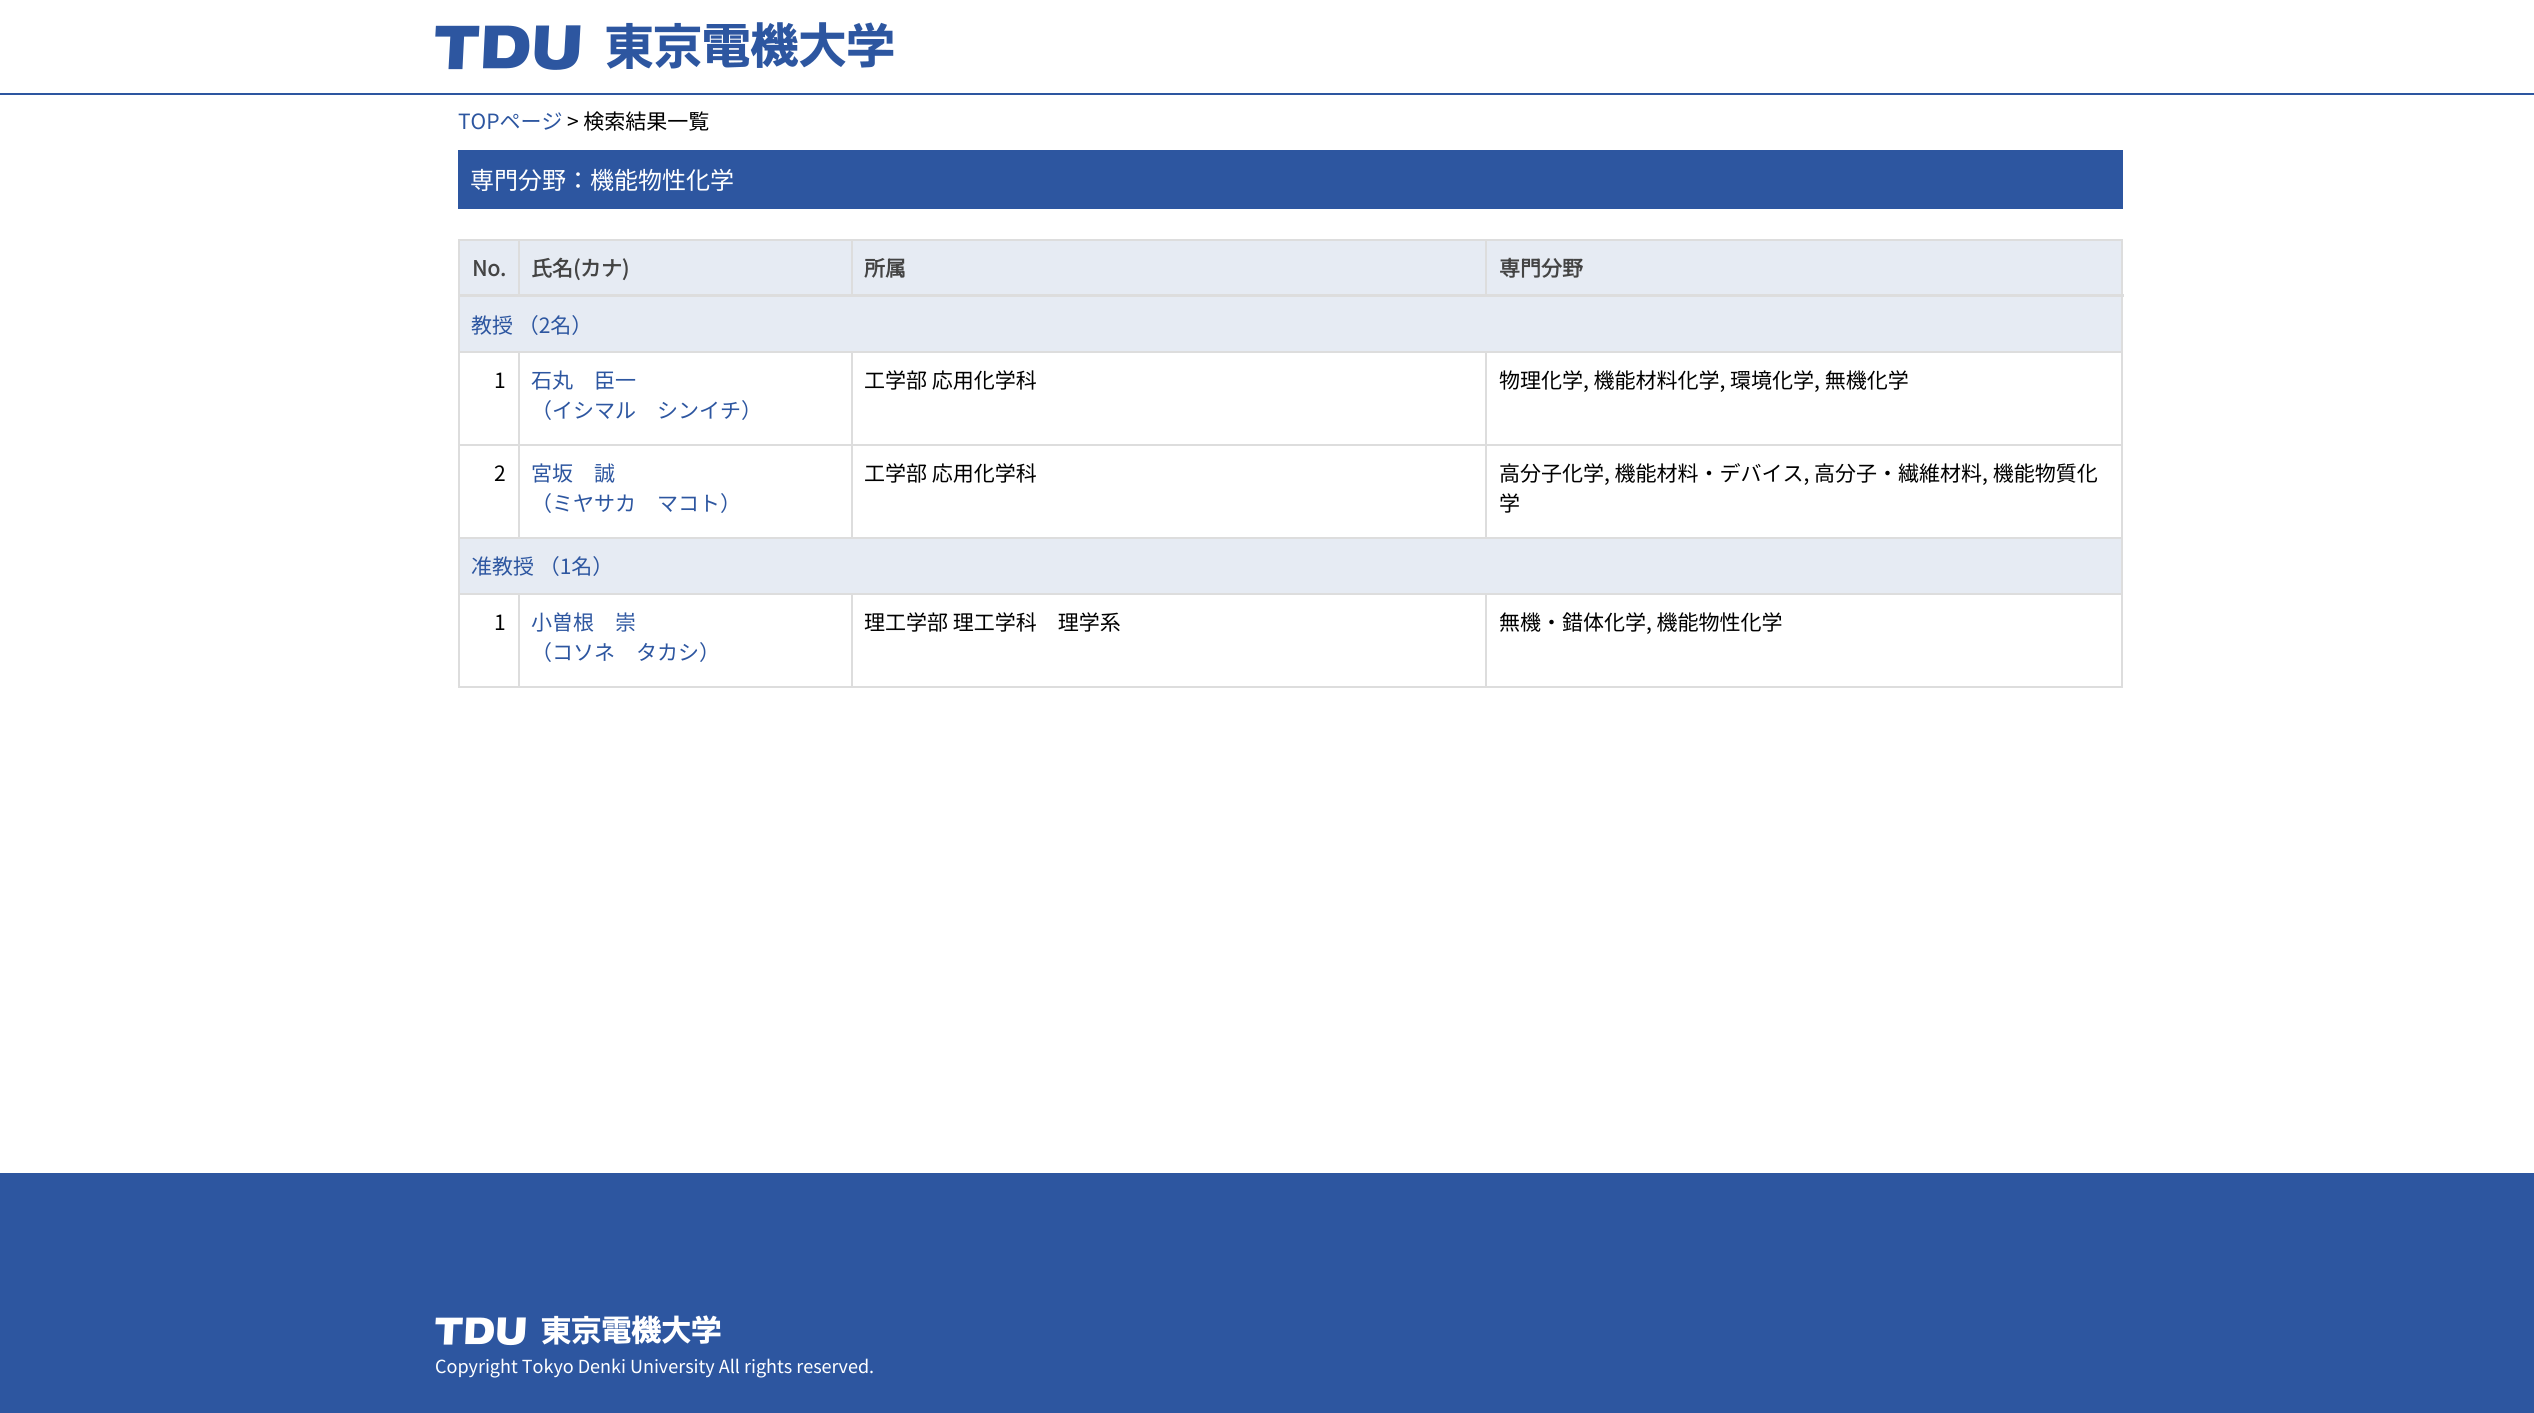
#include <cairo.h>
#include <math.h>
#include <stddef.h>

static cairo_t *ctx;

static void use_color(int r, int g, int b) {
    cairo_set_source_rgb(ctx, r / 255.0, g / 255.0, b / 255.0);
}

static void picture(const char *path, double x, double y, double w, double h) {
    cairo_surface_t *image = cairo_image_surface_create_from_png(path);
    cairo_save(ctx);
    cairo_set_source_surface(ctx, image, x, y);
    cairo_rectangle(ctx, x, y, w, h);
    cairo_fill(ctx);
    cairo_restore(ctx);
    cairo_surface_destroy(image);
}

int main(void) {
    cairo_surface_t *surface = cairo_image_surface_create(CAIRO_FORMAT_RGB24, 2534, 1413);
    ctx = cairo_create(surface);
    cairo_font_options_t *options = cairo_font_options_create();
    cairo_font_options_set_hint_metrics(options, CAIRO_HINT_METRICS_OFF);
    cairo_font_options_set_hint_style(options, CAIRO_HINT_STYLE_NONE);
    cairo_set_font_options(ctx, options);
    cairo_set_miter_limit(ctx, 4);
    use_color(255, 255, 255);
    cairo_paint(ctx);
    use_color(45, 86, 160);
    cairo_rectangle(ctx, 0, 93, 2534, 2);
    cairo_fill(ctx);
    picture("img1.png", 435, 22, 459, 48);
    cairo_select_font_face(ctx, "Noto Sans JP Thin", CAIRO_FONT_SLANT_NORMAL, CAIRO_FONT_WEIGHT_NORMAL);
    cairo_set_font_size(ctx, 21);
    cairo_move_to(ctx, 458, 129);
    cairo_show_text(ctx, "TOPページ");
    use_color(0, 0, 0);
    cairo_move_to(ctx, 567, 129);
    cairo_show_text(ctx, "> 検索結果一覧");
    use_color(45, 86, 160);
    cairo_rectangle(ctx, 458, 150, 1665, 59);
    cairo_fill(ctx);
    cairo_set_font_size(ctx, 24);
    use_color(255, 255, 255);
    cairo_move_to(ctx, 470, 189);
    cairo_show_text(ctx, "専門分野：機能物性化学");
    use_color(221, 221, 221);
    cairo_rectangle(ctx, 458, 239, 1665, 2);
    cairo_fill(ctx);
    cairo_rectangle(ctx, 2121, 239, 2, 448);
    cairo_fill(ctx);
    cairo_rectangle(ctx, 458, 686, 1665, 2);
    cairo_fill(ctx);
    cairo_rectangle(ctx, 458, 239, 2, 448);
    cairo_fill(ctx);
    use_color(230, 235, 243);
    cairo_rectangle(ctx, 460, 241, 58, 53);
    cairo_fill(ctx);
    cairo_select_font_face(ctx, "Noto Sans JP", CAIRO_FONT_SLANT_NORMAL, CAIRO_FONT_WEIGHT_BOLD);
    cairo_set_font_size(ctx, 21);
    use_color(68, 68, 68);
    cairo_move_to(ctx, 472, 276);
    cairo_show_text(ctx, "No.");
    use_color(230, 235, 243);
    cairo_rectangle(ctx, 520, 241, 331, 53);
    cairo_fill(ctx);
    use_color(221, 221, 221);
    cairo_rectangle(ctx, 518, 239, 2, 57);
    cairo_fill(ctx);
    use_color(68, 68, 68);
    cairo_move_to(ctx, 531, 276);
    cairo_show_text(ctx, "氏名(カナ)");
    use_color(230, 235, 243);
    cairo_rectangle(ctx, 853, 241, 632, 53);
    cairo_fill(ctx);
    use_color(221, 221, 221);
    cairo_rectangle(ctx, 851, 239, 2, 57);
    cairo_fill(ctx);
    use_color(68, 68, 68);
    cairo_move_to(ctx, 864, 276);
    cairo_show_text(ctx, "所属");
    use_color(230, 235, 243);
    cairo_rectangle(ctx, 1487, 241, 634, 53);
    cairo_fill(ctx);
    use_color(221, 221, 221);
    cairo_rectangle(ctx, 1485, 239, 2, 57);
    cairo_fill(ctx);
    cairo_rectangle(ctx, 458, 294, 1666, 3);
    cairo_fill(ctx);
    use_color(68, 68, 68);
    cairo_move_to(ctx, 1499, 276);
    cairo_show_text(ctx, "専門分野");
    use_color(230, 235, 243);
    cairo_rectangle(ctx, 460, 297, 1661, 54);
    cairo_fill(ctx);
    cairo_select_font_face(ctx, "Noto Sans JP Thin", CAIRO_FONT_SLANT_NORMAL, CAIRO_FONT_WEIGHT_NORMAL);
    use_color(45, 86, 160);
    cairo_move_to(ctx, 471, 333);
    cairo_show_text(ctx, "教授 （2名）");
    use_color(221, 221, 221);
    cairo_rectangle(ctx, 1485, 351, 638, 2);
    cairo_fill(ctx);
    cairo_rectangle(ctx, 1485, 444, 638, 2);
    cairo_fill(ctx);
    cairo_rectangle(ctx, 458, 537, 1665, 2);
    cairo_fill(ctx);
    cairo_rectangle(ctx, 1485, 444, 2, 95);
    cairo_fill(ctx);
    cairo_rectangle(ctx, 851, 444, 636, 2);
    cairo_fill(ctx);
    cairo_rectangle(ctx, 1485, 351, 2, 95);
    cairo_fill(ctx);
    cairo_rectangle(ctx, 851, 351, 636, 2);
    cairo_fill(ctx);
    cairo_rectangle(ctx, 851, 444, 2, 95);
    cairo_fill(ctx);
    cairo_rectangle(ctx, 518, 444, 334, 2);
    cairo_fill(ctx);
    cairo_rectangle(ctx, 851, 351, 2, 95);
    cairo_fill(ctx);
    cairo_rectangle(ctx, 518, 351, 334, 2);
    cairo_fill(ctx);
    cairo_rectangle(ctx, 518, 444, 2, 95);
    cairo_fill(ctx);
    cairo_rectangle(ctx, 458, 444, 61, 2);
    cairo_fill(ctx);
    cairo_rectangle(ctx, 518, 351, 2, 95);
    cairo_fill(ctx);
    cairo_rectangle(ctx, 458, 351, 61, 2);
    cairo_fill(ctx);
    use_color(0, 0, 0);
    cairo_move_to(ctx, 494, 388);
    cairo_show_text(ctx, "1");
    use_color(45, 86, 160);
    cairo_move_to(ctx, 531, 388);
    cairo_show_text(ctx, "石丸　臣一");
    cairo_move_to(ctx, 531, 418);
    cairo_show_text(ctx, "（イシマル　シンイチ）");
    use_color(0, 0, 0);
    cairo_move_to(ctx, 864, 388);
    cairo_show_text(ctx, "工学部 応用化学科");
    cairo_move_to(ctx, 1499, 388);
    cairo_show_text(ctx, "物理化学, 機能材料化学, 環境化学, 無機化学");
    cairo_move_to(ctx, 494, 481);
    cairo_show_text(ctx, "2");
    use_color(45, 86, 160);
    cairo_move_to(ctx, 531, 481);
    cairo_show_text(ctx, "宮坂　誠");
    cairo_move_to(ctx, 531, 511);
    cairo_show_text(ctx, "（ミヤサカ　マコト）");
    use_color(0, 0, 0);
    cairo_move_to(ctx, 864, 481);
    cairo_show_text(ctx, "工学部 応用化学科");
    cairo_move_to(ctx, 1499, 481);
    cairo_show_text(ctx, "高分子化学, 機能材料・デバイス, 高分子・繊維材料, 機能物質化");
    cairo_move_to(ctx, 1499, 511);
    cairo_show_text(ctx, "学");
    use_color(230, 235, 243);
    cairo_rectangle(ctx, 460, 539, 1661, 54);
    cairo_fill(ctx);
    use_color(45, 86, 160);
    cairo_move_to(ctx, 471, 574);
    cairo_show_text(ctx, "准教授 （1名）");
    use_color(221, 221, 221);
    cairo_rectangle(ctx, 1485, 593, 638, 2);
    cairo_fill(ctx);
    cairo_rectangle(ctx, 1485, 593, 2, 94);
    cairo_fill(ctx);
    cairo_rectangle(ctx, 851, 593, 636, 2);
    cairo_fill(ctx);
    cairo_rectangle(ctx, 851, 593, 2, 94);
    cairo_fill(ctx);
    cairo_rectangle(ctx, 518, 593, 334, 2);
    cairo_fill(ctx);
    cairo_rectangle(ctx, 518, 593, 2, 94);
    cairo_fill(ctx);
    cairo_rectangle(ctx, 458, 593, 61, 2);
    cairo_fill(ctx);
    use_color(0, 0, 0);
    cairo_move_to(ctx, 494, 630);
    cairo_show_text(ctx, "1");
    use_color(45, 86, 160);
    cairo_move_to(ctx, 531, 630);
    cairo_show_text(ctx, "小曽根　崇");
    cairo_move_to(ctx, 531, 660);
    cairo_show_text(ctx, "（コソネ　タカシ）");
    use_color(0, 0, 0);
    cairo_move_to(ctx, 864, 630);
    cairo_show_text(ctx, "理工学部 理工学科　理学系");
    cairo_move_to(ctx, 1499, 630);
    cairo_show_text(ctx, "無機・錯体化学, 機能物性化学");
    use_color(45, 86, 160);
    cairo_rectangle(ctx, 0, 1173, 2534, 240);
    cairo_fill(ctx);
    picture("img2.png", 435, 1315, 286, 31);
    cairo_set_font_size(ctx, 18);
    use_color(255, 255, 255);
    cairo_move_to(ctx, 435, 1373);
    cairo_show_text(ctx, "Copyright Tokyo Denki University All rights reserved.");
    cairo_surface_write_to_png(surface, "result.png");
    cairo_font_options_destroy(options);
    cairo_destroy(ctx);
    cairo_surface_destroy(surface);
    return 0;
}
